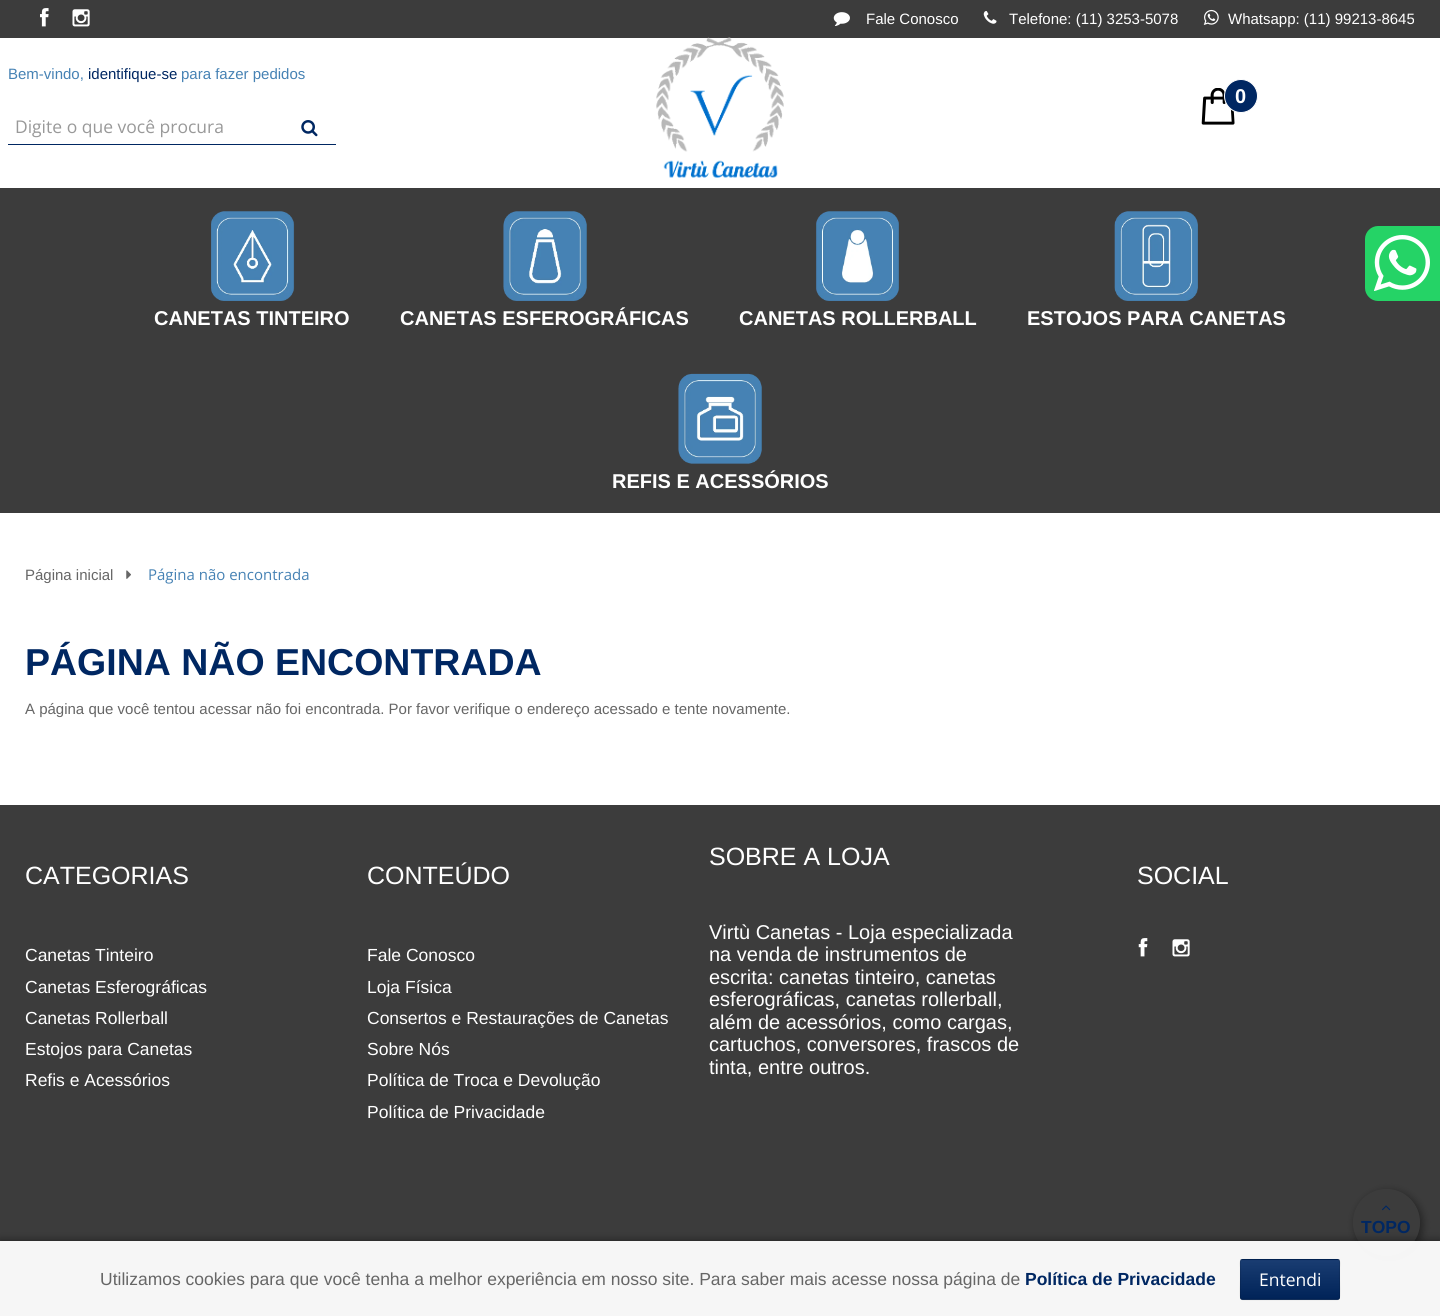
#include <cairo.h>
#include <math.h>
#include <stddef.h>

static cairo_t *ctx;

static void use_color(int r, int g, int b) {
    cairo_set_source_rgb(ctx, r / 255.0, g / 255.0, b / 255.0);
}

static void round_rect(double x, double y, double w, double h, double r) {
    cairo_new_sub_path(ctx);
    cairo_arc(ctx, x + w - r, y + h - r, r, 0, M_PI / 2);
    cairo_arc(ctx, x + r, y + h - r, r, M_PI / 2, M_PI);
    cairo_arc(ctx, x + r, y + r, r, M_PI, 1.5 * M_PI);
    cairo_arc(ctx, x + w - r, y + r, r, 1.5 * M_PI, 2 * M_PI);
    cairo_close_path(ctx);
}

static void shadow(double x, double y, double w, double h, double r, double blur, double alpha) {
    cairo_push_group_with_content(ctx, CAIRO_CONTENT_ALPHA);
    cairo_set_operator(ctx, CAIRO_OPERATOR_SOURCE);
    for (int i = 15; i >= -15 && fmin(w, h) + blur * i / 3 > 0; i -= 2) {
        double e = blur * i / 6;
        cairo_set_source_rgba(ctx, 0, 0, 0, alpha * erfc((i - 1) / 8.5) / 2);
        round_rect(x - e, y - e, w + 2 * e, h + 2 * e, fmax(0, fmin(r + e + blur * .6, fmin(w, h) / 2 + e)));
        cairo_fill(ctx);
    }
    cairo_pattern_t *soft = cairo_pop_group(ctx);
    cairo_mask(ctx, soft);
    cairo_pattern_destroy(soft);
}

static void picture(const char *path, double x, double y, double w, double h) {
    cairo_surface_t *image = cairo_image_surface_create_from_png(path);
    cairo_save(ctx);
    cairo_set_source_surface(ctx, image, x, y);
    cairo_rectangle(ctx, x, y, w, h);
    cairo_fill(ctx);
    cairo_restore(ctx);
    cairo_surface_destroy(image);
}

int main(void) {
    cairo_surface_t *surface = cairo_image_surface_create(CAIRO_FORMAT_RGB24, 1440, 1316);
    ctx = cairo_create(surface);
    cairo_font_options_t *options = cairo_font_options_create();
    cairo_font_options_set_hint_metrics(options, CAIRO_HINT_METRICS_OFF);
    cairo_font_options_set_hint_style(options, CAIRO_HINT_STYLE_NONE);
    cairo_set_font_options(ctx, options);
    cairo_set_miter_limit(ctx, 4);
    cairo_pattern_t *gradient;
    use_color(255, 255, 255);
    cairo_paint(ctx);
    use_color(60, 60, 60);
    cairo_rectangle(ctx, 0, 0, 1440, 38);
    cairo_fill(ctx);
    picture("img1.png", 40, 8, 9, 19);
    picture("img2.png", 72, 9, 18, 18);
    picture("img3.png", 833, 12, 17, 14);
    cairo_select_font_face(ctx, "Liberation Sans", CAIRO_FONT_SLANT_NORMAL, CAIRO_FONT_WEIGHT_NORMAL);
    cairo_set_font_size(ctx, 15);
    use_color(255, 255, 255);
    cairo_move_to(ctx, 866, 24);
    cairo_show_text(ctx, "Fale Conosco");
    picture("img4.png", 983, 11, 14, 13);
    cairo_move_to(ctx, 1009, 24);
    cairo_show_text(ctx, "Telefone: (11) 3253-5078");
    picture("img5.png", 1203, 9, 16, 16);
    cairo_move_to(ctx, 1228, 24);
    cairo_show_text(ctx, "Whatsapp: (11) 99213-8645");
    use_color(70, 130, 180);
    cairo_move_to(ctx, 8, 79);
    cairo_show_text(ctx, "Bem-vindo,");
    use_color(0, 39, 98);
    cairo_move_to(ctx, 88, 79);
    cairo_show_text(ctx, "identifique-se");
    use_color(70, 130, 180);
    cairo_move_to(ctx, 181, 79);
    cairo_show_text(ctx, "para fazer pedidos");
    use_color(0, 39, 98);
    cairo_rectangle(ctx, 8, 144, 328, 1);
    cairo_fill(ctx);
    cairo_select_font_face(ctx, "Open Sans", CAIRO_FONT_SLANT_NORMAL, CAIRO_FONT_WEIGHT_NORMAL);
    cairo_set_font_size(ctx, 17.5);
    use_color(153, 153, 153);
    cairo_move_to(ctx, 15, 133);
    cairo_show_text(ctx, "Digite o que você procura");
    picture("img6.png", 301, 120, 17, 17);
    picture("img7.png", 656, 37, 128, 141);
    picture("img8.png", 1201, 88, 34, 37);
    use_color(0, 39, 98);
    cairo_arc(ctx, 1241, 96, 16.5, 0, 2 * M_PI);
    cairo_fill_preserve(ctx);
    use_color(255, 255, 255);
    cairo_set_line_width(ctx, 1);
    cairo_stroke(ctx);
    cairo_select_font_face(ctx, "Liberation Sans", CAIRO_FONT_SLANT_NORMAL, CAIRO_FONT_WEIGHT_BOLD);
    cairo_set_font_size(ctx, 20);
    cairo_move_to(ctx, 1235, 103);
    cairo_show_text(ctx, "0");
    use_color(60, 60, 60);
    cairo_rectangle(ctx, 0, 188, 1440, 325);
    cairo_fill(ctx);
    picture("img9.png", 211, 211, 84, 90);
    use_color(255, 255, 255);
    cairo_move_to(ctx, 154, 325);
    cairo_show_text(ctx, "CANETAS TINTEIRO");
    picture("img10.png", 503, 211, 84, 90);
    cairo_move_to(ctx, 400, 325);
    cairo_show_text(ctx, "CANETAS ESFEROGRÁFICAS");
    picture("img11.png", 816, 211, 83, 90);
    cairo_move_to(ctx, 739, 325);
    cairo_show_text(ctx, "CANETAS ROLLERBALL");
    picture("img12.png", 1114, 211, 84, 90);
    cairo_move_to(ctx, 1027, 325);
    cairo_show_text(ctx, "ESTOJOS PARA CANETAS");
    picture("img13.png", 678, 373, 84, 91);
    cairo_move_to(ctx, 612, 488);
    cairo_show_text(ctx, "REFIS E ACESSÓRIOS");
    cairo_select_font_face(ctx, "Liberation Sans", CAIRO_FONT_SLANT_NORMAL, CAIRO_FONT_WEIGHT_NORMAL);
    cairo_set_font_size(ctx, 15);
    use_color(102, 102, 102);
    cairo_move_to(ctx, 25, 580);
    cairo_show_text(ctx, "Página inicial");
    picture("img14.png", 126, 570, 5, 9);
    cairo_select_font_face(ctx, "Open Sans", CAIRO_FONT_SLANT_NORMAL, CAIRO_FONT_WEIGHT_NORMAL);
    use_color(70, 130, 180);
    cairo_move_to(ctx, 148, 580);
    cairo_show_text(ctx, "Página não encontrada");
    cairo_select_font_face(ctx, "Liberation Sans", CAIRO_FONT_SLANT_NORMAL, CAIRO_FONT_WEIGHT_BOLD);
    cairo_set_font_size(ctx, 37.5);
    use_color(0, 39, 98);
    cairo_move_to(ctx, 25, 675);
    cairo_show_text(ctx, "PÁGINA NÃO ENCONTRADA");
    cairo_select_font_face(ctx, "Liberation Sans", CAIRO_FONT_SLANT_NORMAL, CAIRO_FONT_WEIGHT_NORMAL);
    cairo_set_font_size(ctx, 15);
    use_color(102, 102, 102);
    cairo_move_to(ctx, 25, 714);
    cairo_show_text(ctx, "A página que você tentou acessar não foi encontrada. Por favor verifique o endereço acessado e tente novamente.");
    use_color(60, 60, 60);
    cairo_rectangle(ctx, 0, 805, 1440, 511);
    cairo_fill(ctx);
    cairo_set_font_size(ctx, 25);
    use_color(255, 255, 255);
    cairo_move_to(ctx, 25, 884);
    cairo_show_text(ctx, "CATEGORIAS");
    cairo_set_font_size(ctx, 17.5);
    cairo_move_to(ctx, 25, 961);
    cairo_show_text(ctx, "Canetas Tinteiro");
    cairo_move_to(ctx, 25, 993);
    cairo_show_text(ctx, "Canetas Esferográficas");
    cairo_move_to(ctx, 25, 1024);
    cairo_show_text(ctx, "Canetas Rollerball");
    cairo_move_to(ctx, 25, 1055);
    cairo_show_text(ctx, "Estojos para Canetas");
    cairo_move_to(ctx, 25, 1086);
    cairo_show_text(ctx, "Refis e Acessórios");
    cairo_set_font_size(ctx, 25);
    cairo_move_to(ctx, 367, 884);
    cairo_show_text(ctx, "CONTEÚDO");
    cairo_set_font_size(ctx, 17.5);
    cairo_move_to(ctx, 367, 961);
    cairo_show_text(ctx, "Fale Conosco");
    cairo_move_to(ctx, 367, 993);
    cairo_show_text(ctx, "Loja Física");
    cairo_move_to(ctx, 367, 1024);
    cairo_show_text(ctx, "Consertos e Restaurações de Canetas");
    cairo_move_to(ctx, 367, 1055);
    cairo_show_text(ctx, "Sobre Nós");
    cairo_move_to(ctx, 367, 1086);
    cairo_show_text(ctx, "Política de Troca e Devolução");
    cairo_move_to(ctx, 367, 1118);
    cairo_show_text(ctx, "Política de Privacidade");
    cairo_set_font_size(ctx, 25);
    cairo_move_to(ctx, 709, 865);
    cairo_show_text(ctx, "SOBRE A LOJA");
    cairo_set_font_size(ctx, 20);
    cairo_move_to(ctx, 709, 939);
    cairo_show_text(ctx, "Virtù Canetas - Loja especializada");
    cairo_move_to(ctx, 709, 961);
    cairo_show_text(ctx, "na venda de instrumentos de");
    cairo_move_to(ctx, 709, 984);
    cairo_show_text(ctx, "escrita: canetas tinteiro, canetas");
    cairo_move_to(ctx, 709, 1006);
    cairo_show_text(ctx, "esferográficas, canetas rollerball,");
    cairo_move_to(ctx, 709, 1029);
    cairo_show_text(ctx, "além de acessórios, como cargas,");
    cairo_move_to(ctx, 709, 1051);
    cairo_show_text(ctx, "cartuchos, conversores, frascos de");
    cairo_move_to(ctx, 709, 1074);
    cairo_show_text(ctx, "tinta, entre outros.");
    cairo_set_font_size(ctx, 25);
    cairo_move_to(ctx, 1137, 884);
    cairo_show_text(ctx, "SOCIAL");
    picture("img15.png", 1138, 938, 10, 19);
    picture("img2.png", 1172, 939, 18, 18);
    use_color(37, 211, 102);
    cairo_new_path(ctx);
    cairo_move_to(ctx, 1378, 226);
    cairo_line_to(ctx, 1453, 226);
    cairo_line_to(ctx, 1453, 301);
    cairo_line_to(ctx, 1378, 301);
    cairo_curve_to(ctx, 1371, 301, 1365, 295, 1365, 288);
    cairo_line_to(ctx, 1365, 239);
    cairo_curve_to(ctx, 1365, 232, 1371, 226, 1378, 226);
    cairo_close_path(ctx);
    cairo_fill(ctx);
    picture("img16.png", 1374, 235, 56, 56);
    cairo_save(ctx);
    cairo_set_fill_rule(ctx, CAIRO_FILL_RULE_EVEN_ODD);
    cairo_new_path(ctx);
    cairo_move_to(ctx, 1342, 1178);
    cairo_line_to(ctx, 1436, 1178);
    cairo_line_to(ctx, 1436, 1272);
    cairo_line_to(ctx, 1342, 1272);
    cairo_close_path(ctx);
    cairo_move_to(ctx, 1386.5, 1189);
    cairo_curve_to(ctx, 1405, 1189, 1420, 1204, 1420, 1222.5);
    cairo_curve_to(ctx, 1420, 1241, 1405, 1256, 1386.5, 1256);
    cairo_curve_to(ctx, 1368, 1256, 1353, 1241, 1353, 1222.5);
    cairo_curve_to(ctx, 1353, 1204, 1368, 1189, 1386.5, 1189);
    cairo_close_path(ctx);
    cairo_clip(ctx);
    use_color(0, 0, 0);
    shadow(1355, 1191, 68, 68, 34, 4, 0.4);
    cairo_restore(ctx);
    picture("img17.png", 1382, 1205, 9, 6);
    cairo_select_font_face(ctx, "Liberation Sans", CAIRO_FONT_SLANT_NORMAL, CAIRO_FONT_WEIGHT_BOLD);
    cairo_set_font_size(ctx, 17.5);
    use_color(0, 39, 98);
    cairo_move_to(ctx, 1361, 1233);
    cairo_show_text(ctx, "TOPO");
    cairo_save(ctx);
    cairo_set_fill_rule(ctx, CAIRO_FILL_RULE_EVEN_ODD);
    cairo_new_path(ctx);
    cairo_move_to(ctx, 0, 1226);
    cairo_line_to(ctx, 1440, 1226);
    cairo_line_to(ctx, 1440, 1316);
    cairo_line_to(ctx, 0, 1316);
    cairo_close_path(ctx);
    cairo_move_to(ctx, 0, 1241);
    cairo_line_to(ctx, 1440, 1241);
    cairo_line_to(ctx, 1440, 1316);
    cairo_line_to(ctx, 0, 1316);
    cairo_close_path(ctx);
    cairo_clip(ctx);
    use_color(0, 0, 0);
    shadow(0, 1241, 1440, 75, 0, 4.5, 0.5);
    cairo_restore(ctx);
    cairo_set_source_rgba(ctx, 1, 1, 1, 0.95);
    cairo_rectangle(ctx, 0, 1241, 1440, 75);
    cairo_fill(ctx);
    cairo_select_font_face(ctx, "Liberation Sans", CAIRO_FONT_SLANT_NORMAL, CAIRO_FONT_WEIGHT_NORMAL);
    use_color(102, 102, 102);
    cairo_move_to(ctx, 100, 1285);
    cairo_show_text(ctx, "Utilizamos cookies para que você tenha a melhor experiência em nosso site. Para saber mais acesse nossa página de");
    cairo_select_font_face(ctx, "Liberation Sans", CAIRO_FONT_SLANT_NORMAL, CAIRO_FONT_WEIGHT_BOLD);
    use_color(0, 39, 98);
    cairo_move_to(ctx, 1025, 1285);
    cairo_show_text(ctx, "Política de Privacidade");
    round_rect(1240, 1259, 100, 41, 2.5);
    cairo_fill(ctx);
    gradient = cairo_pattern_create_linear(1290, 1221, 1290, 1260);
    cairo_pattern_add_color_stop_rgba(gradient, 0, 1, 1, 1, 0.1);
    cairo_pattern_add_color_stop_rgba(gradient, 1, 0, 0, 0, 0.1);
    cairo_set_source(ctx, gradient);
    cairo_pattern_destroy(gradient);
    cairo_rectangle(ctx, 1240, 1259, 100, 1);
    cairo_fill(ctx);
    gradient = cairo_pattern_create_linear(1290, 1260, 1290, 1299);
    cairo_pattern_add_color_stop_rgba(gradient, 0, 1, 1, 1, 0.1);
    cairo_pattern_add_color_stop_rgba(gradient, 1, 0, 0, 0, 0.1);
    cairo_set_source(ctx, gradient);
    cairo_pattern_destroy(gradient);
    cairo_rectangle(ctx, 1240, 1260, 100, 39);
    cairo_fill(ctx);
    gradient = cairo_pattern_create_linear(1290, 1299, 1290, 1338);
    cairo_pattern_add_color_stop_rgba(gradient, 0, 1, 1, 1, 0.1);
    cairo_pattern_add_color_stop_rgba(gradient, 1, 0, 0, 0, 0.1);
    cairo_set_source(ctx, gradient);
    cairo_pattern_destroy(gradient);
    cairo_rectangle(ctx, 1240, 1299, 100, 1);
    cairo_fill(ctx);
    cairo_new_path(ctx);
    cairo_move_to(ctx, 1339, 1299);
    cairo_line_to(ctx, 1337.5, 1299.5);
    cairo_line_to(ctx, 1242.5, 1299.5);
    cairo_line_to(ctx, 1241, 1299);
    cairo_set_source_rgba(ctx, 0, 0, 0, 0.2);
    cairo_set_line_width(ctx, 1.2);
    cairo_stroke(ctx);
    cairo_new_path(ctx);
    cairo_move_to(ctx, 1241, 1299);
    cairo_curve_to(ctx, 1239.5, 1297.5, 1240.5, 1282, 1240.5, 1279.5);
    cairo_line_to(ctx, 1240.5, 1267.5);
    cairo_curve_to(ctx, 1240.5, 1267, 1239, 1259.5, 1242.5, 1259.5);
    cairo_line_to(ctx, 1337.5, 1259.5);
    cairo_curve_to(ctx, 1341, 1259.5, 1339.5, 1267, 1339.5, 1267.5);
    cairo_line_to(ctx, 1339.5, 1279.5);
    cairo_curve_to(ctx, 1339.5, 1282, 1340.5, 1297.5, 1339, 1299);
    cairo_set_source_rgba(ctx, 0, 0, 0, 0.1);
    cairo_stroke(ctx);
    cairo_select_font_face(ctx, "Open Sans", CAIRO_FONT_SLANT_NORMAL, CAIRO_FONT_WEIGHT_NORMAL);
    use_color(255, 255, 255);
    cairo_move_to(ctx, 1259, 1286);
    cairo_show_text(ctx, "Entendi");
    cairo_surface_write_to_png(surface, "result.png");
    cairo_font_options_destroy(options);
    cairo_destroy(ctx);
    cairo_surface_destroy(surface);
    return 0;
}
